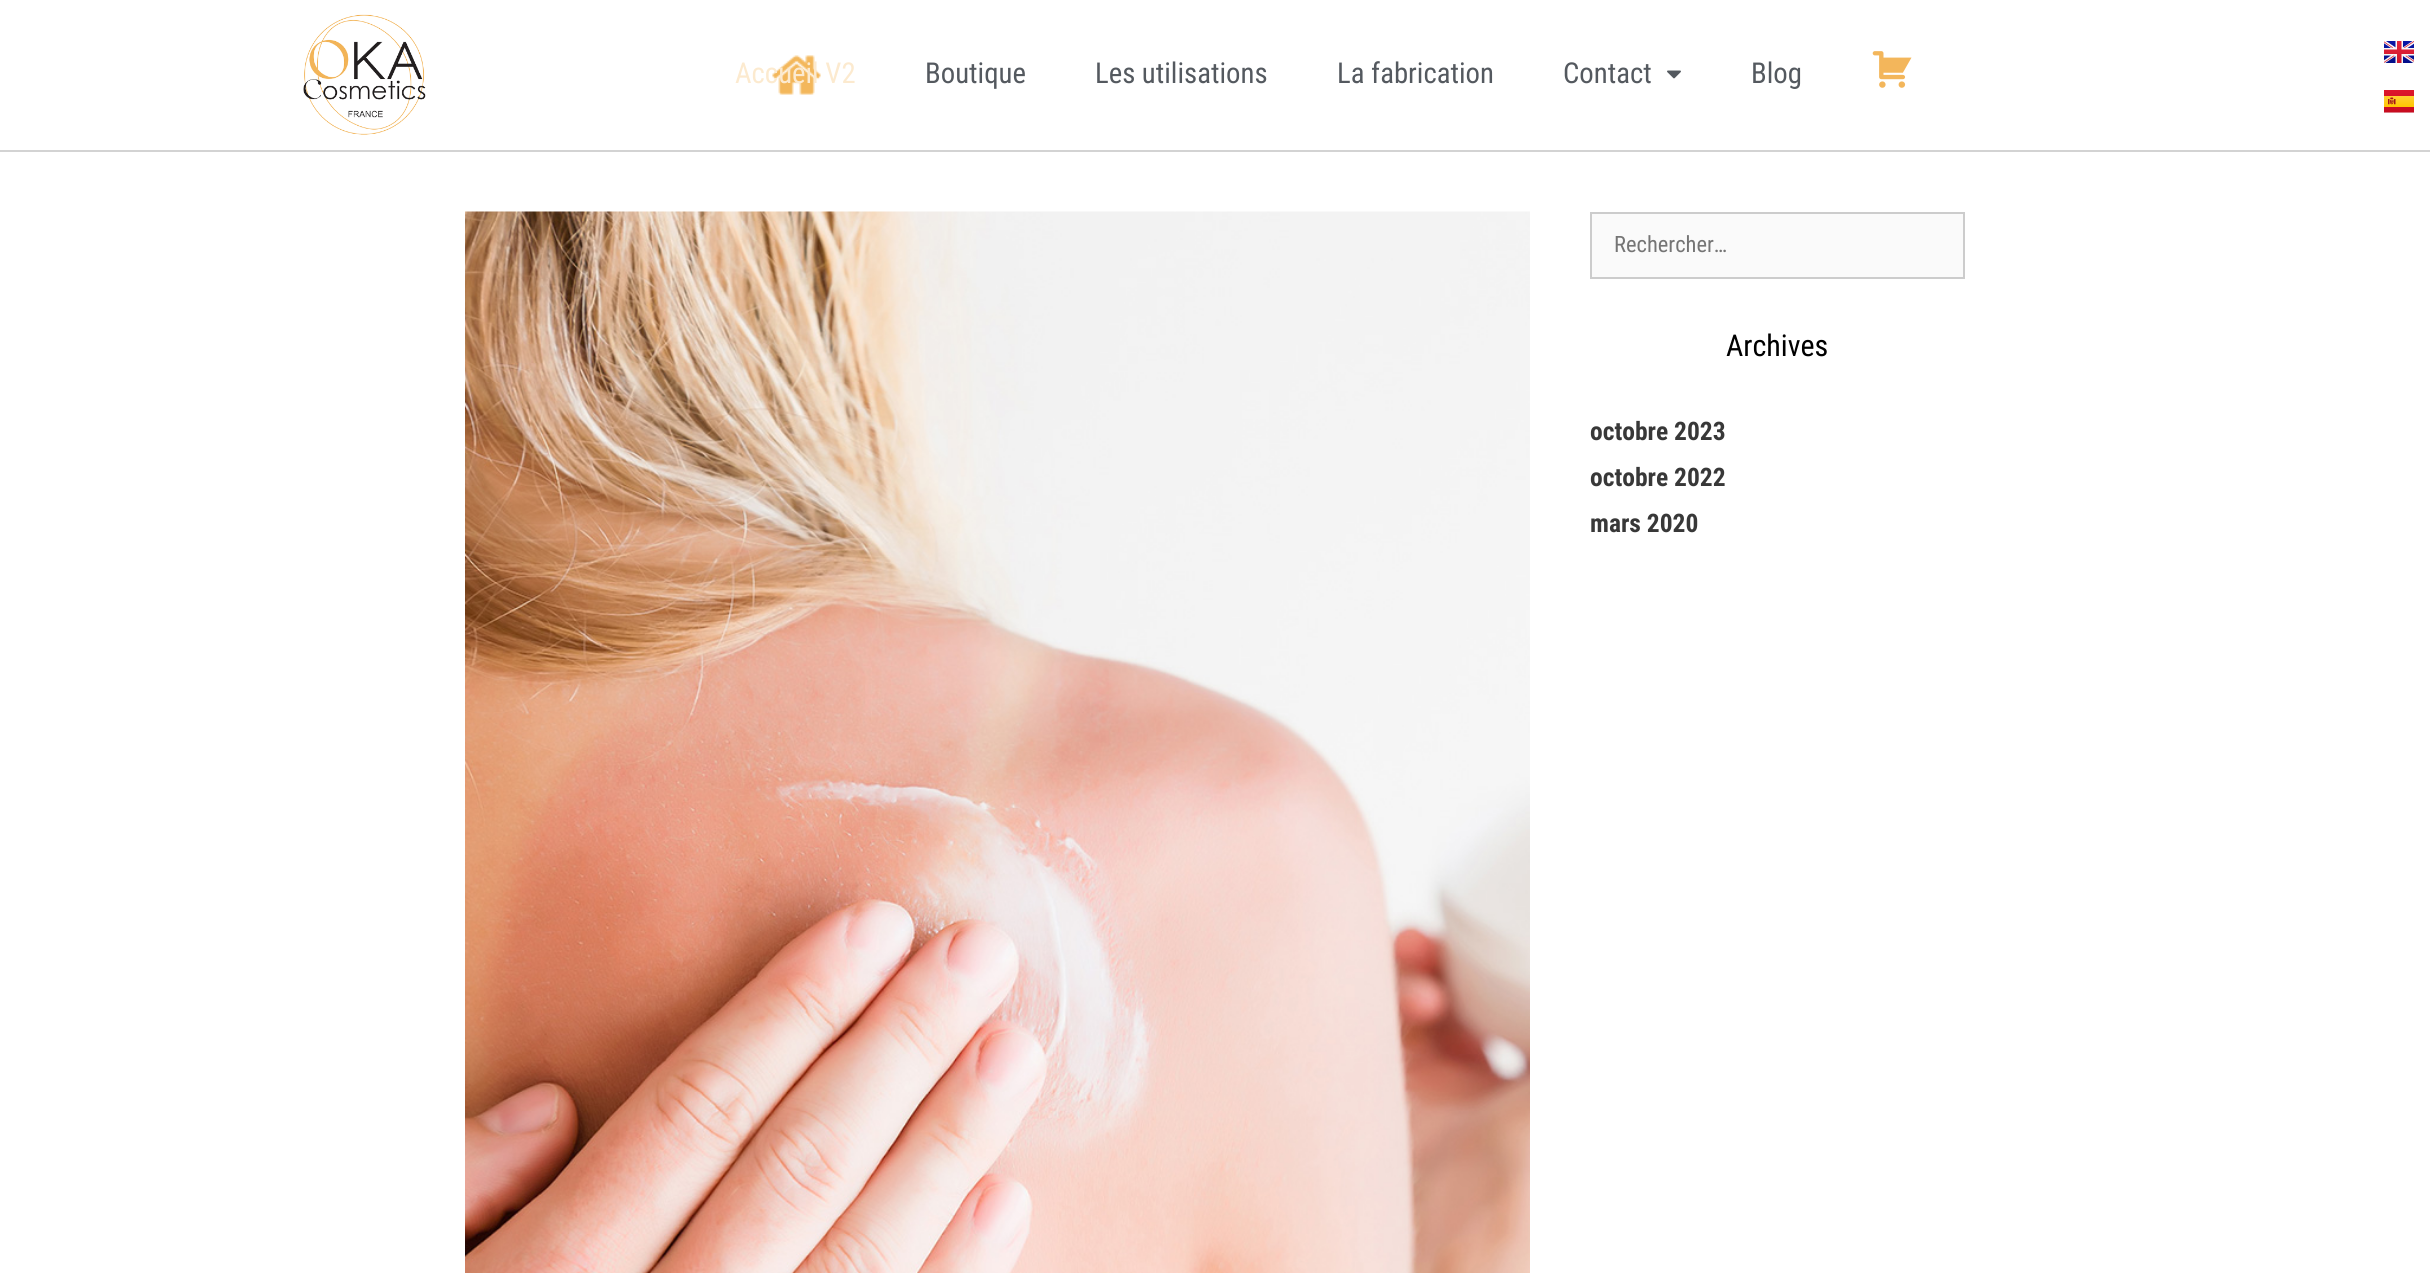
#include <cairo.h>
#include <math.h>
#include <stddef.h>

static cairo_t *ctx;

static void use_color(int r, int g, int b) {
    cairo_set_source_rgb(ctx, r / 255.0, g / 255.0, b / 255.0);
}

static void picture(const char *path, double x, double y, double w, double h) {
    cairo_surface_t *image = cairo_image_surface_create_from_png(path);
    cairo_save(ctx);
    cairo_set_source_surface(ctx, image, x, y);
    cairo_rectangle(ctx, x, y, w, h);
    cairo_fill(ctx);
    cairo_restore(ctx);
    cairo_surface_destroy(image);
}

int main(void) {
    cairo_surface_t *surface = cairo_image_surface_create(CAIRO_FORMAT_RGB24, 2430, 1273);
    ctx = cairo_create(surface);
    cairo_font_options_t *options = cairo_font_options_create();
    cairo_font_options_set_hint_metrics(options, CAIRO_HINT_METRICS_OFF);
    cairo_font_options_set_hint_style(options, CAIRO_HINT_STYLE_NONE);
    cairo_set_font_options(ctx, options);
    cairo_set_miter_limit(ctx, 4);
    use_color(255, 255, 255);
    cairo_paint(ctx);
    use_color(211, 211, 211);
    cairo_rectangle(ctx, 0, 150, 2430, 2);
    cairo_fill(ctx);
    picture("img1.png", 303, 14, 123, 121);
    picture("img2.png", 772, 55, 49, 40);
    cairo_select_font_face(ctx, "Roboto Condensed", CAIRO_FONT_SLANT_NORMAL, CAIRO_FONT_WEIGHT_NORMAL);
    cairo_set_font_size(ctx, 28.75);
    use_color(252, 234, 207);
    cairo_move_to(ctx, 735, 83);
    cairo_show_text(ctx, "Accueil V2");
    use_color(84, 89, 95);
    cairo_move_to(ctx, 925, 83);
    cairo_show_text(ctx, "Boutique");
    cairo_move_to(ctx, 1095, 83);
    cairo_show_text(ctx, "Les utilisations");
    cairo_move_to(ctx, 1337, 83);
    cairo_show_text(ctx, "La fabrication");
    cairo_move_to(ctx, 1563, 83);
    cairo_show_text(ctx, "Contact");
    picture("img3.png", 1667, 70, 14, 9);
    cairo_move_to(ctx, 1751, 83);
    cairo_show_text(ctx, "Blog");
    picture("img4.png", 1872, 51, 40, 37);
    picture("img5.png", 2384, 41, 30, 22);
    picture("img6.png", 2384, 90, 30, 23);
    picture("img7.png", 465, 211, 1065, 1062);
    use_color(250, 250, 250);
    cairo_rectangle(ctx, 1591, 213, 373, 65);
    cairo_fill_preserve(ctx);
    use_color(204, 204, 204);
    cairo_stroke(ctx);
    cairo_set_font_size(ctx, 22.5);
    use_color(117, 117, 117);
    cairo_move_to(ctx, 1614, 252);
    cairo_show_text(ctx, "Rechercher…");
    cairo_set_font_size(ctx, 30);
    use_color(0, 0, 0);
    cairo_move_to(ctx, 1726, 356);
    cairo_show_text(ctx, "Archives");
    cairo_select_font_face(ctx, "Roboto Condensed", CAIRO_FONT_SLANT_NORMAL, CAIRO_FONT_WEIGHT_BOLD);
    cairo_set_font_size(ctx, 25.5);
    use_color(56, 56, 56);
    cairo_move_to(ctx, 1590, 440);
    cairo_show_text(ctx, "octobre 2023");
    cairo_move_to(ctx, 1590, 486);
    cairo_show_text(ctx, "octobre 2022");
    cairo_move_to(ctx, 1590, 532);
    cairo_show_text(ctx, "mars 2020");
    cairo_surface_write_to_png(surface, "result.png");
    cairo_font_options_destroy(options);
    cairo_destroy(ctx);
    cairo_surface_destroy(surface);
    return 0;
}
